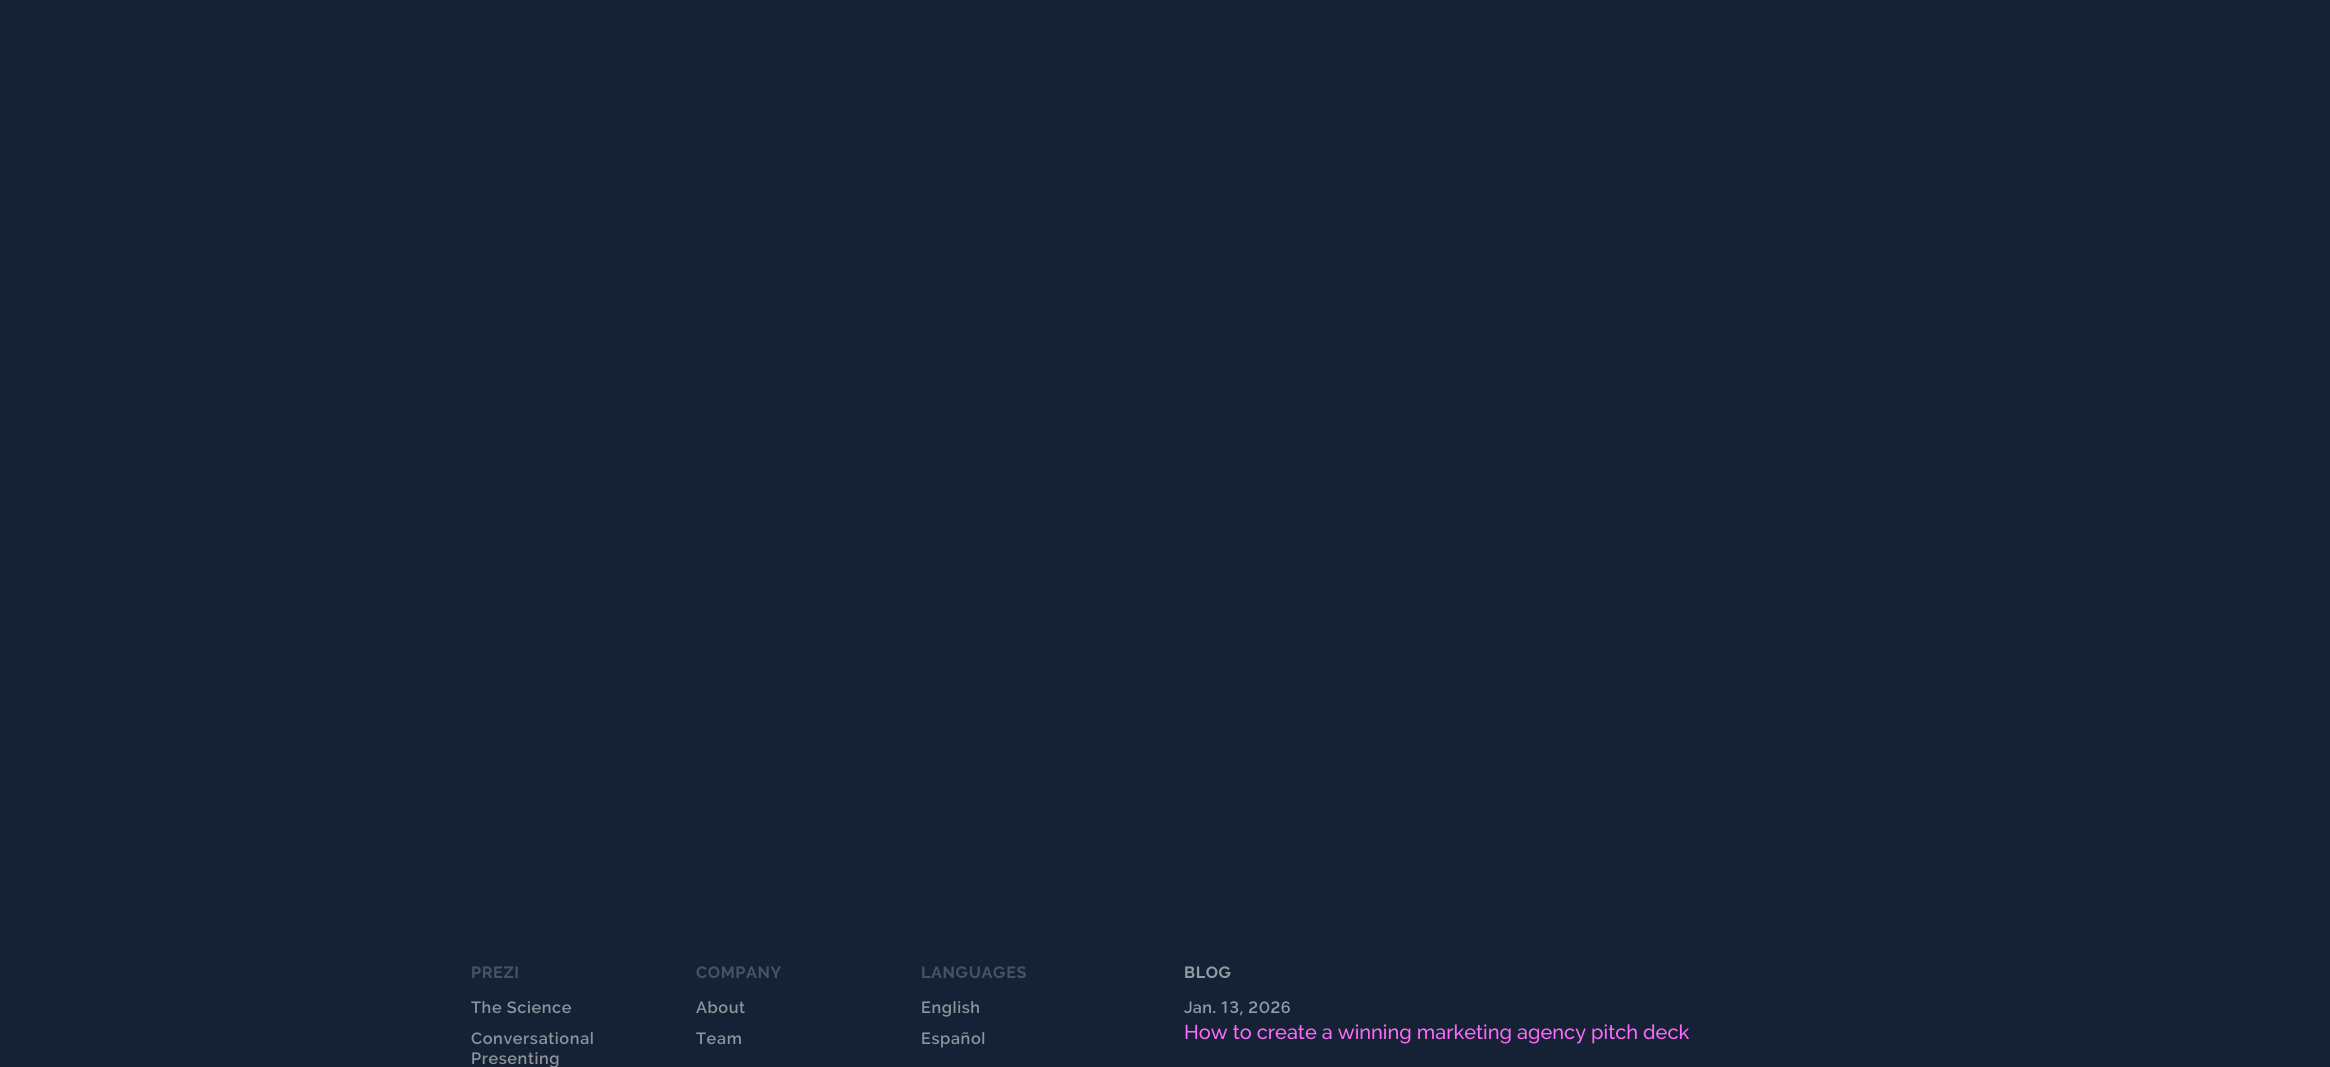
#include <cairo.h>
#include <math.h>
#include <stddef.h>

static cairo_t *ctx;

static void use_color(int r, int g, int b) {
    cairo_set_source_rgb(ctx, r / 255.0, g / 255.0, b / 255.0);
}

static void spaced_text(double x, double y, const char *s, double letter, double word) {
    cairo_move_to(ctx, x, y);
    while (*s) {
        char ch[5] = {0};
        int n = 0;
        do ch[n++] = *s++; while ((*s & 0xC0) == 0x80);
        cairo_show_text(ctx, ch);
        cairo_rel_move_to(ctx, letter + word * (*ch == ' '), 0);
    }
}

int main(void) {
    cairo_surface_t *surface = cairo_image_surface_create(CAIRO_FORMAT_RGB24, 2330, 1067);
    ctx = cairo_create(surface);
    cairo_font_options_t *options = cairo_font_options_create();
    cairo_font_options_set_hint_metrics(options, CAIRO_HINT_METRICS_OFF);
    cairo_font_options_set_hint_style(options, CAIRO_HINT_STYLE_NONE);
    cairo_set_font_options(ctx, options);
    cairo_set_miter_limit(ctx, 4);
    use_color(21, 34, 53);
    cairo_paint(ctx);
    cairo_select_font_face(ctx, "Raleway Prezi", CAIRO_FONT_SLANT_NORMAL, CAIRO_FONT_WEIGHT_BOLD);
    cairo_set_font_size(ctx, 16.25);
    use_color(71, 82, 98);
    spaced_text(471, 978, "PREZI", 0.6, 0);
    cairo_select_font_face(ctx, "Raleway Prezi SemiBold", CAIRO_FONT_SLANT_NORMAL, CAIRO_FONT_WEIGHT_NORMAL);
    use_color(142, 147, 156);
    spaced_text(471, 1013, "The Science", 0.6, 0);
    spaced_text(471, 1044, "Conversational", 0.6, 0);
    spaced_text(471, 1064, "Presenting", 0.6, 0);
    cairo_select_font_face(ctx, "Raleway Prezi", CAIRO_FONT_SLANT_NORMAL, CAIRO_FONT_WEIGHT_BOLD);
    use_color(71, 82, 98);
    spaced_text(696, 978, "COMPANY", 0.6, 0);
    cairo_select_font_face(ctx, "Raleway Prezi SemiBold", CAIRO_FONT_SLANT_NORMAL, CAIRO_FONT_WEIGHT_NORMAL);
    use_color(142, 147, 156);
    spaced_text(696, 1013, "About", 0.6, 0);
    spaced_text(696, 1044, "Team", 0.6, 0);
    cairo_select_font_face(ctx, "Raleway Prezi", CAIRO_FONT_SLANT_NORMAL, CAIRO_FONT_WEIGHT_BOLD);
    use_color(71, 82, 98);
    spaced_text(921, 978, "LANGUAGES", 0.6, 0);
    cairo_select_font_face(ctx, "Raleway Prezi SemiBold", CAIRO_FONT_SLANT_NORMAL, CAIRO_FONT_WEIGHT_NORMAL);
    use_color(142, 147, 156);
    spaced_text(921, 1013, "English", 0.6, 0);
    spaced_text(921, 1044, "Español", 0.6, 0);
    cairo_select_font_face(ctx, "Raleway Prezi", CAIRO_FONT_SLANT_NORMAL, CAIRO_FONT_WEIGHT_BOLD);
    use_color(146, 154, 163);
    spaced_text(1184, 978, "BLOG", 0.6, 0);
    cairo_select_font_face(ctx, "Raleway Prezi SemiBold", CAIRO_FONT_SLANT_NORMAL, CAIRO_FONT_WEIGHT_NORMAL);
    spaced_text(1184, 1013, "Jan. 13, 2026", 0.6, 0);
    cairo_select_font_face(ctx, "Raleway Prezi Medium", CAIRO_FONT_SLANT_NORMAL, CAIRO_FONT_WEIGHT_NORMAL);
    cairo_set_font_size(ctx, 20);
    use_color(253, 106, 250);
    cairo_move_to(ctx, 1184, 1039);
    cairo_show_text(ctx, "How to create a winning marketing agency pitch deck");
    cairo_surface_write_to_png(surface, "result.png");
    cairo_font_options_destroy(options);
    cairo_destroy(ctx);
    cairo_surface_destroy(surface);
    return 0;
}
